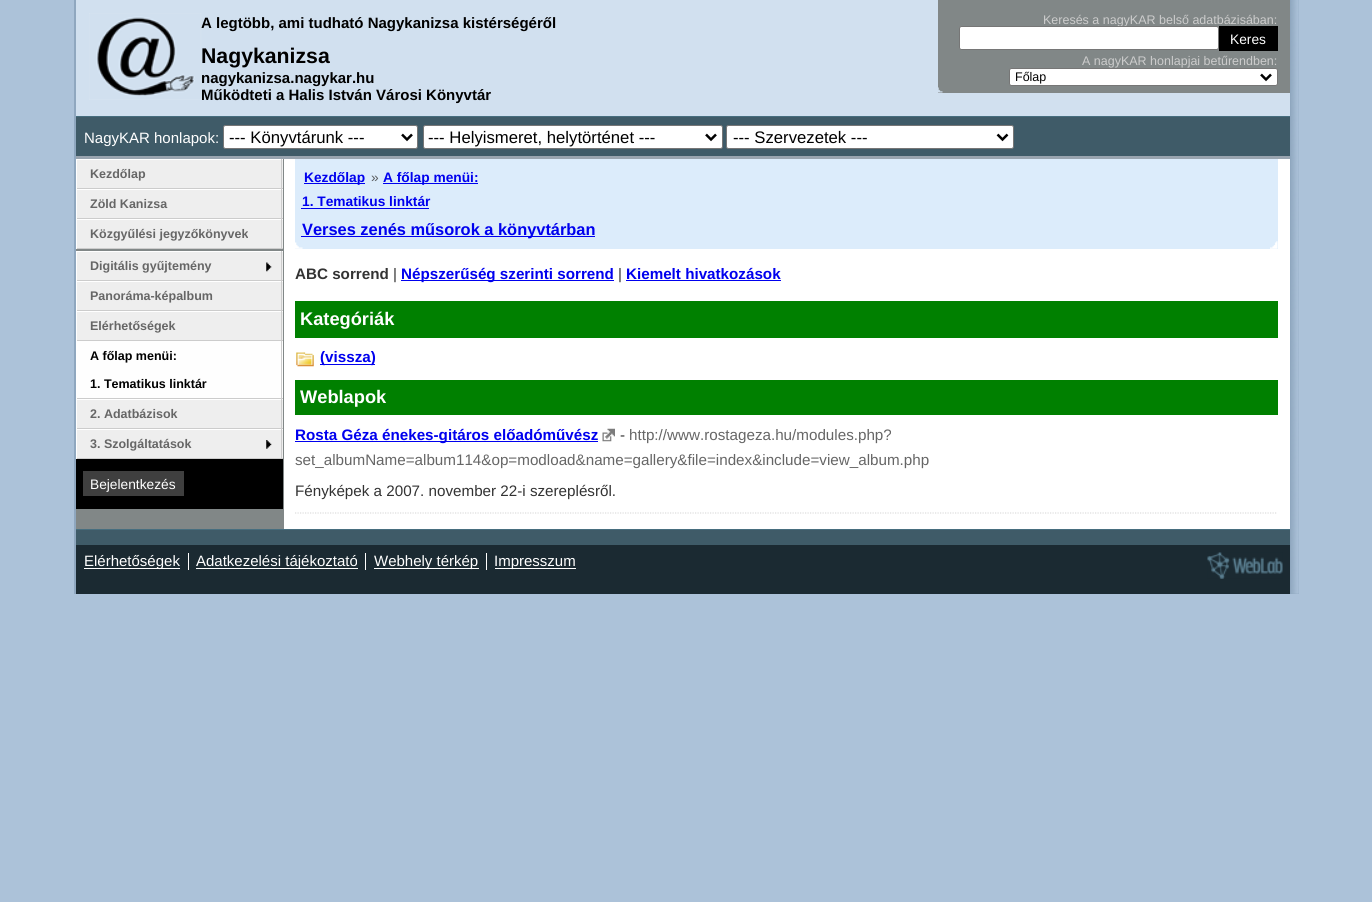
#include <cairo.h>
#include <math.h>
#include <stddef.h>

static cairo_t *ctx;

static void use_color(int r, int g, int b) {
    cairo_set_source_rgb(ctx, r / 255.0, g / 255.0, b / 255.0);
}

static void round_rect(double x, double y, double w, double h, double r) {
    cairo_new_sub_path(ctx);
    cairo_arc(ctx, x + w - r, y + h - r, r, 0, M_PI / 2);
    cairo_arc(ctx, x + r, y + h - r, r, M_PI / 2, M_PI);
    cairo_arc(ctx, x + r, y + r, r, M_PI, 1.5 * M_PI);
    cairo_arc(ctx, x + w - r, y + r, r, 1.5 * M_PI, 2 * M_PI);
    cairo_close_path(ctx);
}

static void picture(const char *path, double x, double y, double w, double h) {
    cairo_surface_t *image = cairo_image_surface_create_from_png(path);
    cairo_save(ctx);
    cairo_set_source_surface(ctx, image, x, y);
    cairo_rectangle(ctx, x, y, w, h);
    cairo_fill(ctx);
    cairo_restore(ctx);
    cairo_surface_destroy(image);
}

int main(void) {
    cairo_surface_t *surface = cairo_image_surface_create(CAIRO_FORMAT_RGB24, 1372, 902);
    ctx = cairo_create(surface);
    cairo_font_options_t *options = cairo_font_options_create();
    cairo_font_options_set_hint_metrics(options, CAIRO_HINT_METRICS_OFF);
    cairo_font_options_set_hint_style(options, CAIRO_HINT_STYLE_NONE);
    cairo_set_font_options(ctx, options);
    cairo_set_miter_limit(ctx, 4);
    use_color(172, 194, 217);
    cairo_paint(ctx);
    use_color(143, 167, 191);
    cairo_rectangle(ctx, 74, 0, 1225, 594);
    cairo_fill(ctx);
    picture("img1.png", 1291, 0, 8, 594);
    use_color(255, 255, 255);
    cairo_rectangle(ctx, 284, 159, 1006, 370);
    cairo_fill(ctx);
    use_color(129, 135, 135);
    cairo_rectangle(ctx, 76, 159, 208, 370);
    cairo_fill(ctx);
    use_color(209, 224, 239);
    cairo_rectangle(ctx, 76, 0, 1214, 116);
    cairo_fill(ctx);
    use_color(153, 164, 175);
    cairo_rectangle(ctx, 76, 156, 1214, 3);
    cairo_fill(ctx);
    cairo_select_font_face(ctx, "Liberation Sans", CAIRO_FONT_SLANT_NORMAL, CAIRO_FONT_WEIGHT_BOLD);
    cairo_set_font_size(ctx, 15);
    use_color(0, 0, 0);
    cairo_move_to(ctx, 201, 28);
    cairo_show_text(ctx, "A legtöbb, ami tudható Nagykanizsa kistérségéről");
    picture("img2.png", 89, 13, 113, 87);
    cairo_set_font_size(ctx, 21.25);
    cairo_move_to(ctx, 201, 63);
    cairo_show_text(ctx, "Nagykanizsa");
    cairo_set_font_size(ctx, 15);
    cairo_move_to(ctx, 201, 83);
    cairo_show_text(ctx, "nagykanizsa.nagykar.hu");
    cairo_move_to(ctx, 201, 100);
    cairo_show_text(ctx, "Működteti a Halis István Városi Könyvtár");
    use_color(129, 135, 135);
    cairo_rectangle(ctx, 938, 0, 352, 93);
    cairo_fill(ctx);
    picture("img3.png", 938, 87, 5, 6);
    cairo_select_font_face(ctx, "Liberation Sans", CAIRO_FONT_SLANT_NORMAL, CAIRO_FONT_WEIGHT_NORMAL);
    cairo_set_font_size(ctx, 12.5);
    use_color(204, 204, 204);
    cairo_move_to(ctx, 1043, 24);
    cairo_show_text(ctx, "Keresés a nagyKAR belső adatbázisában:");
    use_color(255, 255, 255);
    round_rect(959.5, 26.5, 259, 23, 2);
    cairo_fill_preserve(ctx);
    use_color(118, 118, 118);
    cairo_set_line_width(ctx, 1);
    cairo_stroke(ctx);
    use_color(0, 0, 0);
    cairo_rectangle(ctx, 1219, 26, 59, 25);
    cairo_fill(ctx);
    cairo_set_font_size(ctx, 13.75);
    use_color(255, 255, 255);
    cairo_move_to(ctx, 1230, 44);
    cairo_show_text(ctx, "Keres");
    cairo_set_font_size(ctx, 12.5);
    use_color(204, 204, 204);
    cairo_move_to(ctx, 1082, 65);
    cairo_show_text(ctx, "A nagyKAR honlapjai betűrendben:");
    use_color(255, 255, 255);
    round_rect(1009.5, 68.5, 268, 17, 2);
    cairo_fill_preserve(ctx);
    use_color(118, 118, 118);
    cairo_stroke(ctx);
    cairo_new_path(ctx);
    cairo_move_to(ctx, 1261, 74.5);
    cairo_line_to(ctx, 1266, 79.5);
    cairo_line_to(ctx, 1271, 74.5);
    use_color(0, 0, 0);
    cairo_set_line_width(ctx, 2.5);
    cairo_stroke(ctx);
    cairo_move_to(ctx, 1015, 81);
    cairo_show_text(ctx, "Főlap");
    use_color(63, 91, 104);
    cairo_rectangle(ctx, 76, 117, 1214, 39);
    cairo_fill(ctx);
    use_color(71, 110, 127);
    cairo_rectangle(ctx, 76, 116, 1214, 1);
    cairo_fill(ctx);
    cairo_set_font_size(ctx, 15);
    use_color(255, 255, 255);
    cairo_move_to(ctx, 84, 143);
    cairo_show_text(ctx, "NagyKAR honlapok:");
    round_rect(223.5, 125.5, 194, 23, 2);
    cairo_fill_preserve(ctx);
    use_color(118, 118, 118);
    cairo_set_line_width(ctx, 1);
    cairo_stroke(ctx);
    cairo_new_path(ctx);
    cairo_move_to(ctx, 402, 134.5);
    cairo_line_to(ctx, 407, 139.5);
    cairo_line_to(ctx, 412, 134.5);
    use_color(0, 0, 0);
    cairo_set_line_width(ctx, 2.5);
    cairo_stroke(ctx);
    cairo_set_font_size(ctx, 16.7);
    cairo_move_to(ctx, 229, 143);
    cairo_show_text(ctx, "--- Könyvtárunk ---");
    use_color(255, 255, 255);
    round_rect(423.5, 125.5, 299, 23, 2);
    cairo_fill_preserve(ctx);
    use_color(118, 118, 118);
    cairo_set_line_width(ctx, 1);
    cairo_stroke(ctx);
    cairo_new_path(ctx);
    cairo_move_to(ctx, 706, 134.5);
    cairo_line_to(ctx, 711, 139.5);
    cairo_line_to(ctx, 716, 134.5);
    use_color(0, 0, 0);
    cairo_set_line_width(ctx, 2.5);
    cairo_stroke(ctx);
    cairo_move_to(ctx, 428, 143);
    cairo_show_text(ctx, "--- Helyismeret, helytörténet ---");
    use_color(255, 255, 255);
    round_rect(726.5, 125.5, 287, 23, 2);
    cairo_fill_preserve(ctx);
    use_color(118, 118, 118);
    cairo_set_line_width(ctx, 1);
    cairo_stroke(ctx);
    cairo_new_path(ctx);
    cairo_move_to(ctx, 997.5, 134.5);
    cairo_line_to(ctx, 1002.5, 139.5);
    cairo_line_to(ctx, 1007.5, 134.5);
    use_color(0, 0, 0);
    cairo_set_line_width(ctx, 2.5);
    cairo_stroke(ctx);
    cairo_move_to(ctx, 733, 143);
    cairo_show_text(ctx, "--- Szervezetek ---");
    use_color(238, 238, 238);
    cairo_rectangle(ctx, 77, 160, 206, 28);
    cairo_fill(ctx);
    use_color(255, 255, 255);
    cairo_rectangle(ctx, 76, 159, 207, 1);
    cairo_fill(ctx);
    use_color(204, 204, 204);
    cairo_rectangle(ctx, 281, 159, 1, 30);
    cairo_fill(ctx);
    cairo_rectangle(ctx, 76, 188, 207, 1);
    cairo_fill(ctx);
    use_color(255, 255, 255);
    cairo_rectangle(ctx, 76, 159, 1, 30);
    cairo_fill(ctx);
    cairo_select_font_face(ctx, "Liberation Sans", CAIRO_FONT_SLANT_NORMAL, CAIRO_FONT_WEIGHT_BOLD);
    cairo_set_font_size(ctx, 12.5);
    use_color(102, 102, 102);
    cairo_move_to(ctx, 90, 178);
    cairo_show_text(ctx, "Kezdőlap");
    use_color(238, 238, 238);
    cairo_rectangle(ctx, 77, 190, 206, 28);
    cairo_fill(ctx);
    use_color(255, 255, 255);
    cairo_rectangle(ctx, 76, 189, 207, 1);
    cairo_fill(ctx);
    use_color(204, 204, 204);
    cairo_rectangle(ctx, 281, 189, 1, 30);
    cairo_fill(ctx);
    cairo_rectangle(ctx, 76, 218, 207, 1);
    cairo_fill(ctx);
    use_color(255, 255, 255);
    cairo_rectangle(ctx, 76, 189, 1, 30);
    cairo_fill(ctx);
    use_color(102, 102, 102);
    cairo_move_to(ctx, 90, 208);
    cairo_show_text(ctx, "Zöld Kanizsa");
    use_color(238, 238, 238);
    cairo_rectangle(ctx, 77, 220, 206, 28);
    cairo_fill(ctx);
    use_color(255, 255, 255);
    cairo_rectangle(ctx, 76, 219, 207, 1);
    cairo_fill(ctx);
    use_color(204, 204, 204);
    cairo_rectangle(ctx, 281, 219, 1, 30);
    cairo_fill(ctx);
    cairo_rectangle(ctx, 76, 248, 207, 1);
    cairo_fill(ctx);
    use_color(255, 255, 255);
    cairo_rectangle(ctx, 76, 219, 1, 30);
    cairo_fill(ctx);
    use_color(102, 102, 102);
    cairo_move_to(ctx, 90, 238);
    cairo_show_text(ctx, "Közgyűlési jegyzőkönyvek");
    use_color(238, 238, 238);
    cairo_rectangle(ctx, 77, 252, 206, 28);
    cairo_fill(ctx);
    picture("img4.png", 266, 262, 6, 10);
    use_color(255, 255, 255);
    cairo_rectangle(ctx, 76, 251, 207, 1);
    cairo_fill(ctx);
    use_color(204, 204, 204);
    cairo_rectangle(ctx, 281, 251, 1, 30);
    cairo_fill(ctx);
    cairo_rectangle(ctx, 76, 280, 207, 1);
    cairo_fill(ctx);
    use_color(255, 255, 255);
    cairo_rectangle(ctx, 76, 251, 1, 30);
    cairo_fill(ctx);
    use_color(102, 102, 102);
    cairo_move_to(ctx, 90, 270);
    cairo_show_text(ctx, "Digitális gyűjtemény");
    use_color(238, 238, 238);
    cairo_rectangle(ctx, 77, 282, 206, 28);
    cairo_fill(ctx);
    use_color(255, 255, 255);
    cairo_rectangle(ctx, 76, 281, 207, 1);
    cairo_fill(ctx);
    use_color(204, 204, 204);
    cairo_rectangle(ctx, 281, 281, 1, 30);
    cairo_fill(ctx);
    cairo_rectangle(ctx, 76, 310, 207, 1);
    cairo_fill(ctx);
    use_color(255, 255, 255);
    cairo_rectangle(ctx, 76, 281, 1, 30);
    cairo_fill(ctx);
    use_color(102, 102, 102);
    cairo_move_to(ctx, 90, 300);
    cairo_show_text(ctx, "Panoráma-képalbum");
    use_color(238, 238, 238);
    cairo_rectangle(ctx, 77, 312, 206, 28);
    cairo_fill(ctx);
    use_color(255, 255, 255);
    cairo_rectangle(ctx, 76, 311, 207, 1);
    cairo_fill(ctx);
    use_color(204, 204, 204);
    cairo_rectangle(ctx, 281, 311, 1, 30);
    cairo_fill(ctx);
    cairo_rectangle(ctx, 76, 340, 207, 1);
    cairo_fill(ctx);
    use_color(255, 255, 255);
    cairo_rectangle(ctx, 76, 311, 1, 30);
    cairo_fill(ctx);
    use_color(102, 102, 102);
    cairo_move_to(ctx, 90, 330);
    cairo_show_text(ctx, "Elérhetőségek");
    use_color(254, 254, 254);
    cairo_rectangle(ctx, 77, 341, 206, 57);
    cairo_fill(ctx);
    use_color(204, 204, 204);
    cairo_rectangle(ctx, 281, 341, 1, 58);
    cairo_fill(ctx);
    cairo_rectangle(ctx, 76, 398, 207, 1);
    cairo_fill(ctx);
    use_color(255, 255, 255);
    cairo_rectangle(ctx, 76, 341, 1, 58);
    cairo_fill(ctx);
    use_color(0, 0, 0);
    cairo_move_to(ctx, 90, 360);
    cairo_show_text(ctx, "A főlap menüi:");
    cairo_move_to(ctx, 90, 388);
    cairo_show_text(ctx, "1. Tematikus linktár");
    use_color(238, 238, 238);
    cairo_rectangle(ctx, 77, 400, 206, 28);
    cairo_fill(ctx);
    use_color(255, 255, 255);
    cairo_rectangle(ctx, 76, 399, 207, 1);
    cairo_fill(ctx);
    use_color(204, 204, 204);
    cairo_rectangle(ctx, 281, 399, 1, 30);
    cairo_fill(ctx);
    cairo_rectangle(ctx, 76, 428, 207, 1);
    cairo_fill(ctx);
    use_color(255, 255, 255);
    cairo_rectangle(ctx, 76, 399, 1, 30);
    cairo_fill(ctx);
    use_color(102, 102, 102);
    cairo_move_to(ctx, 90, 418);
    cairo_show_text(ctx, "2. Adatbázisok");
    use_color(238, 238, 238);
    cairo_rectangle(ctx, 77, 430, 206, 28);
    cairo_fill(ctx);
    picture("img5.png", 266, 440, 6, 9);
    use_color(255, 255, 255);
    cairo_rectangle(ctx, 76, 429, 207, 1);
    cairo_fill(ctx);
    use_color(204, 204, 204);
    cairo_rectangle(ctx, 281, 429, 1, 30);
    cairo_fill(ctx);
    cairo_rectangle(ctx, 76, 458, 207, 1);
    cairo_fill(ctx);
    use_color(255, 255, 255);
    cairo_rectangle(ctx, 76, 429, 1, 30);
    cairo_fill(ctx);
    use_color(102, 102, 102);
    cairo_move_to(ctx, 90, 448);
    cairo_show_text(ctx, "3. Szolgáltatások");
    use_color(0, 0, 0);
    cairo_rectangle(ctx, 76, 459, 207, 50);
    cairo_fill(ctx);
    use_color(63, 63, 63);
    cairo_rectangle(ctx, 83, 471, 101, 25);
    cairo_fill(ctx);
    cairo_select_font_face(ctx, "Liberation Sans", CAIRO_FONT_SLANT_NORMAL, CAIRO_FONT_WEIGHT_NORMAL);
    cairo_set_font_size(ctx, 13.75);
    use_color(255, 255, 255);
    cairo_move_to(ctx, 90, 489);
    cairo_show_text(ctx, "Bejelentkezés");
    use_color(220, 236, 251);
    cairo_rectangle(ctx, 295, 159, 983, 90);
    cairo_fill(ctx);
    picture("img6.png", 295, 242, 8, 7);
    picture("img7.png", 1270, 241, 8, 8);
    use_color(0, 0, 238);
    cairo_rectangle(ctx, 304, 183, 61, 1);
    cairo_fill(ctx);
    cairo_select_font_face(ctx, "Liberation Sans", CAIRO_FONT_SLANT_NORMAL, CAIRO_FONT_WEIGHT_BOLD);
    cairo_move_to(ctx, 304, 182);
    cairo_show_text(ctx, "Kezdőlap");
    cairo_select_font_face(ctx, "Liberation Sans", CAIRO_FONT_SLANT_NORMAL, CAIRO_FONT_WEIGHT_NORMAL);
    use_color(89, 92, 95);
    cairo_move_to(ctx, 371, 182);
    cairo_show_text(ctx, "»");
    use_color(0, 0, 238);
    cairo_rectangle(ctx, 383, 183, 95, 1);
    cairo_fill(ctx);
    cairo_select_font_face(ctx, "Liberation Sans", CAIRO_FONT_SLANT_NORMAL, CAIRO_FONT_WEIGHT_BOLD);
    cairo_move_to(ctx, 383, 182);
    cairo_show_text(ctx, "A főlap menüi:");
    cairo_move_to(ctx, 302, 206);
    cairo_show_text(ctx, "1. Tematikus linktár");
    cairo_rectangle(ctx, 301, 208, 128, 1);
    cairo_fill(ctx);
    cairo_rectangle(ctx, 301, 236, 294, 1);
    cairo_fill(ctx);
    cairo_set_font_size(ctx, 16.4);
    cairo_move_to(ctx, 302, 235);
    cairo_show_text(ctx, "Verses zenés műsorok a könyvtárban");
    cairo_set_font_size(ctx, 15.2);
    use_color(51, 51, 51);
    cairo_move_to(ctx, 295, 279);
    cairo_show_text(ctx, "ABC sorrend");
    cairo_select_font_face(ctx, "Liberation Sans", CAIRO_FONT_SLANT_NORMAL, CAIRO_FONT_WEIGHT_NORMAL);
    cairo_move_to(ctx, 393, 279);
    cairo_show_text(ctx, "|");
    use_color(0, 0, 238);
    cairo_rectangle(ctx, 401, 280, 213, 1);
    cairo_fill(ctx);
    cairo_select_font_face(ctx, "Liberation Sans", CAIRO_FONT_SLANT_NORMAL, CAIRO_FONT_WEIGHT_BOLD);
    cairo_move_to(ctx, 401, 279);
    cairo_show_text(ctx, "Népszerűség szerinti sorrend");
    cairo_select_font_face(ctx, "Liberation Sans", CAIRO_FONT_SLANT_NORMAL, CAIRO_FONT_WEIGHT_NORMAL);
    use_color(51, 51, 51);
    cairo_move_to(ctx, 618, 279);
    cairo_show_text(ctx, "|");
    cairo_select_font_face(ctx, "Liberation Sans", CAIRO_FONT_SLANT_NORMAL, CAIRO_FONT_WEIGHT_BOLD);
    use_color(0, 0, 238);
    cairo_move_to(ctx, 626, 279);
    cairo_show_text(ctx, "Kiemelt hivatkozások");
    cairo_rectangle(ctx, 626, 280, 155, 1);
    cairo_fill(ctx);
    use_color(0, 128, 0);
    cairo_rectangle(ctx, 295, 301, 983, 37);
    cairo_fill(ctx);
    cairo_set_font_size(ctx, 18.25);
    use_color(255, 255, 255);
    cairo_move_to(ctx, 300, 325);
    cairo_show_text(ctx, "Kategóriák");
    picture("img8.png", 296, 352, 18, 15);
    use_color(0, 0, 238);
    cairo_rectangle(ctx, 320, 364, 55, 1);
    cairo_fill(ctx);
    cairo_set_font_size(ctx, 15.2);
    cairo_move_to(ctx, 320, 362);
    cairo_show_text(ctx, "(vissza)");
    use_color(0, 128, 0);
    cairo_rectangle(ctx, 295, 380, 983, 35);
    cairo_fill(ctx);
    cairo_set_font_size(ctx, 18.25);
    use_color(255, 255, 255);
    cairo_move_to(ctx, 300, 403);
    cairo_show_text(ctx, "Weblapok");
    use_color(0, 0, 238);
    cairo_rectangle(ctx, 295, 441, 303, 1);
    cairo_fill(ctx);
    cairo_set_font_size(ctx, 15.2);
    cairo_move_to(ctx, 295, 440);
    cairo_show_text(ctx, "Rosta Géza énekes-gitáros előadóművész");
    picture("img9.png", 602, 428, 13, 14);
    cairo_select_font_face(ctx, "Liberation Sans", CAIRO_FONT_SLANT_NORMAL, CAIRO_FONT_WEIGHT_NORMAL);
    use_color(51, 51, 51);
    cairo_move_to(ctx, 620, 440);
    cairo_show_text(ctx, "-");
    use_color(102, 102, 102);
    cairo_move_to(ctx, 629, 440);
    cairo_show_text(ctx, "http://www.rostageza.hu/modules.php?");
    cairo_move_to(ctx, 295, 465);
    cairo_show_text(ctx, "set_albumName=album114&op=modload&name=gallery&file=index&include=view_album.php");
    cairo_new_path(ctx);
    cairo_move_to(ctx, 295, 513);
    cairo_line_to(ctx, 1277.5, 513);
    use_color(221, 221, 221);
    cairo_set_line_width(ctx, 1.2);
    cairo_set_dash(ctx, (double[]){1.25, 1.25}, 2, 0);
    cairo_stroke(ctx);
    use_color(51, 51, 51);
    cairo_move_to(ctx, 295, 496);
    cairo_show_text(ctx, "Fényképek a 2007. november 22-i szereplésről.");
    use_color(27, 42, 50);
    cairo_rectangle(ctx, 76, 545, 1214, 49);
    cairo_fill(ctx);
    use_color(63, 91, 104);
    cairo_rectangle(ctx, 76, 530, 1214, 15);
    cairo_fill(ctx);
    use_color(71, 110, 127);
    cairo_rectangle(ctx, 76, 529, 1214, 1);
    cairo_fill(ctx);
    use_color(255, 255, 255);
    cairo_rectangle(ctx, 84, 568, 96, 1);
    cairo_fill(ctx);
    cairo_set_font_size(ctx, 15);
    cairo_move_to(ctx, 84, 566);
    cairo_show_text(ctx, "Elérhetőségek");
    cairo_rectangle(ctx, 196, 568, 162, 1);
    cairo_fill(ctx);
    cairo_move_to(ctx, 196, 566);
    cairo_show_text(ctx, "Adatkezelési tájékoztató");
    use_color(254, 254, 254);
    cairo_rectangle(ctx, 188, 553, 1, 17);
    cairo_fill(ctx);
    cairo_rectangle(ctx, 365, 553, 1, 17);
    cairo_fill(ctx);
    use_color(255, 255, 255);
    cairo_rectangle(ctx, 374, 568, 105, 1);
    cairo_fill(ctx);
    cairo_move_to(ctx, 374, 566);
    cairo_show_text(ctx, "Webhely térkép");
    use_color(254, 254, 254);
    cairo_rectangle(ctx, 486, 553, 1, 17);
    cairo_fill(ctx);
    use_color(255, 255, 255);
    cairo_rectangle(ctx, 495, 568, 81, 1);
    cairo_fill(ctx);
    cairo_move_to(ctx, 494, 566);
    cairo_show_text(ctx, "Impresszum");
    picture("img10.png", 1207, 552, 76, 27);
    cairo_surface_write_to_png(surface, "result.png");
    cairo_font_options_destroy(options);
    cairo_destroy(ctx);
    cairo_surface_destroy(surface);
    return 0;
}
